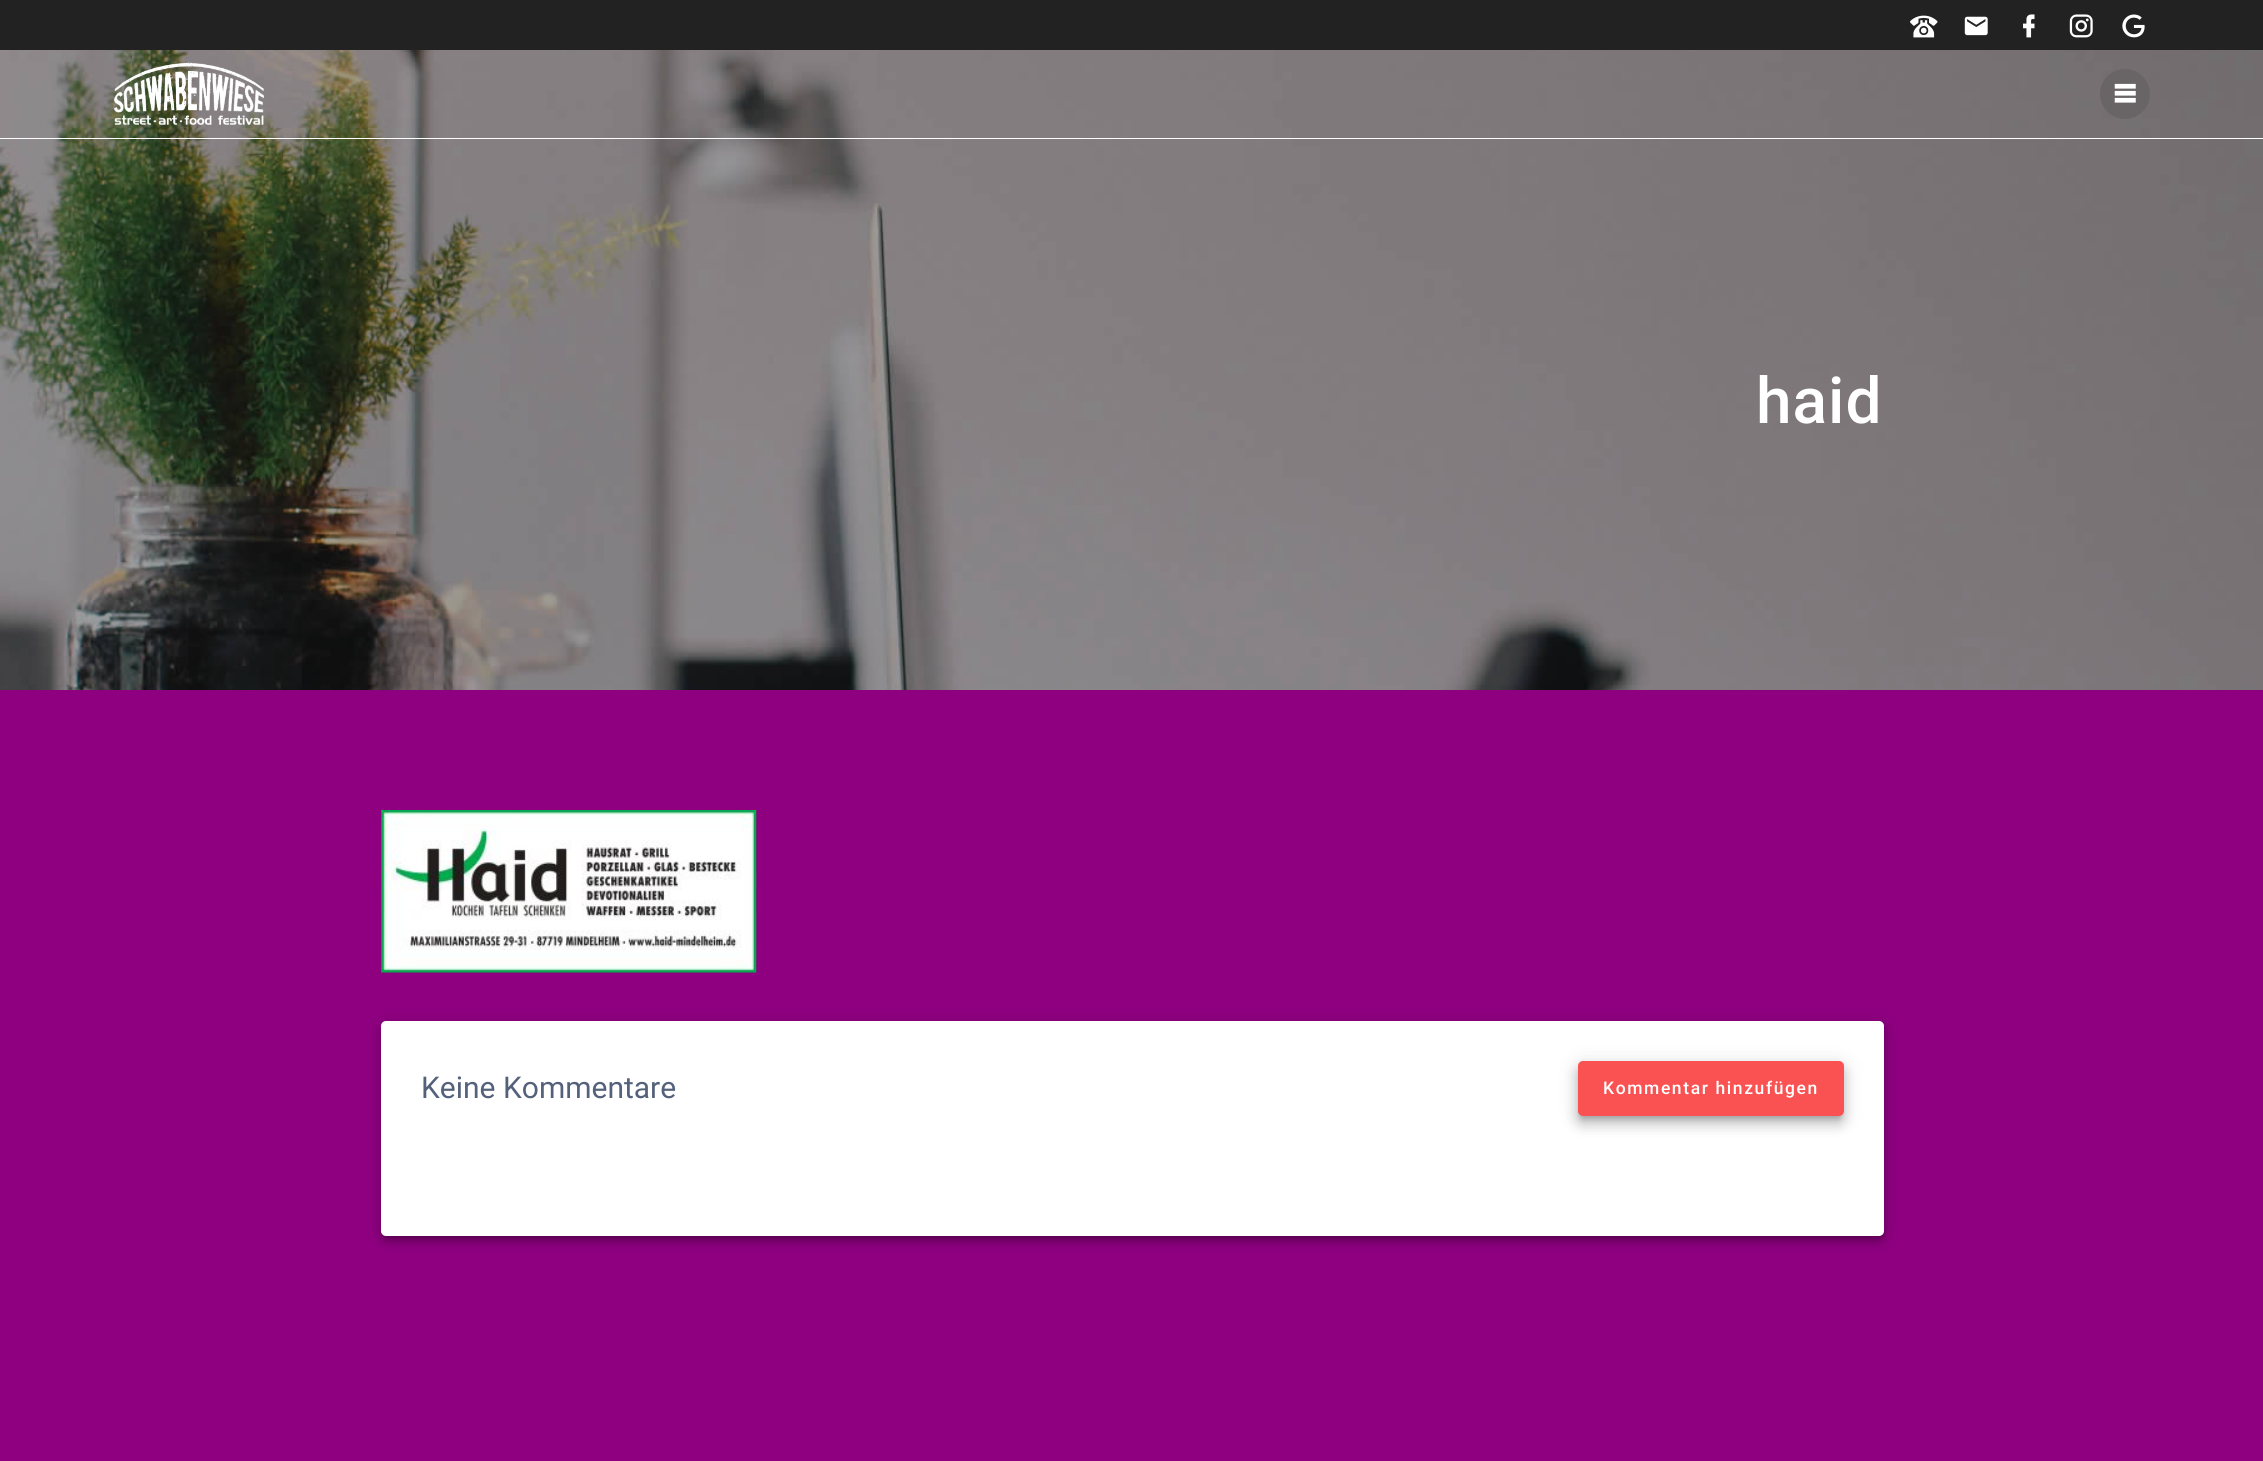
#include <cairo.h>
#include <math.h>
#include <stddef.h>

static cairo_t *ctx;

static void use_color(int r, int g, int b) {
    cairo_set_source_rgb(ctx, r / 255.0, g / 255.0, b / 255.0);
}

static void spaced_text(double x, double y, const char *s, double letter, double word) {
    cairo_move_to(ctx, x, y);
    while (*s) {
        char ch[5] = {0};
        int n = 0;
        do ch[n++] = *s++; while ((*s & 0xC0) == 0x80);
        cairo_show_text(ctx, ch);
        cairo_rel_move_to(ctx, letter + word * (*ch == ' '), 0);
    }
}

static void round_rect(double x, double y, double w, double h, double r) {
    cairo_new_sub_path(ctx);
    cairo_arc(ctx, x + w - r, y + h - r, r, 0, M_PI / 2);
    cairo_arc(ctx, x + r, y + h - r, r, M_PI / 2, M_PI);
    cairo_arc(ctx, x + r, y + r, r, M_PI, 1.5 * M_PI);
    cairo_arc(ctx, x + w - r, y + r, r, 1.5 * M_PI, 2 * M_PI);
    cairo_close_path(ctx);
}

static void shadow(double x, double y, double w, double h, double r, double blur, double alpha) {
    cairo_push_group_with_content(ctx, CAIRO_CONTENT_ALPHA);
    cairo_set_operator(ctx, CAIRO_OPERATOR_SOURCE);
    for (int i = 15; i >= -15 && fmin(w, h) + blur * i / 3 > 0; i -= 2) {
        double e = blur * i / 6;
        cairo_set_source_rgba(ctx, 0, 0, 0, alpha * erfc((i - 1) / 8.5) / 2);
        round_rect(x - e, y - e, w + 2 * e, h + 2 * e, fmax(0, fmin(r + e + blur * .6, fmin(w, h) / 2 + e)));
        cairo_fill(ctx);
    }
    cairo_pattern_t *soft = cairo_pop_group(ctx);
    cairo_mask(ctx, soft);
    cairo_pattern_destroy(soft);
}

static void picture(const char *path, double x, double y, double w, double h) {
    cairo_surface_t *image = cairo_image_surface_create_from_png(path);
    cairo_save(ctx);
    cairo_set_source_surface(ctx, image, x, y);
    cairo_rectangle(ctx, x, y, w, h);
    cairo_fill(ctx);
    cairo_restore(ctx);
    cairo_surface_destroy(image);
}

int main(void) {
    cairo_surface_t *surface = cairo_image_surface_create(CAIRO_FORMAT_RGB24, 2263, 1461);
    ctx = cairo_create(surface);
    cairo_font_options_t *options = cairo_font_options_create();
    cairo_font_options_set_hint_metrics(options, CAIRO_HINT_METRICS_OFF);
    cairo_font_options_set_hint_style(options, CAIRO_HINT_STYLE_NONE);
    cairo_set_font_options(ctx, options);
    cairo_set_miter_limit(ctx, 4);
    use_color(255, 255, 255);
    cairo_paint(ctx);
    use_color(34, 34, 34);
    cairo_rectangle(ctx, 0, 0, 2263, 50);
    cairo_fill(ctx);
    picture("img1.png", 1910, 15, 28, 23);
    picture("img2.png", 1964, 16, 24, 20);
    picture("img3.png", 2023, 14, 12, 24);
    picture("img4.png", 2069, 14, 24, 24);
    picture("img5.png", 2122, 14, 23, 24);
    picture("img8.png", 0, 50, 2263, 640);
    use_color(255, 255, 255);
    cairo_rectangle(ctx, 0, 138, 2263, 1);
    cairo_fill(ctx);
    picture("img6.png", 113, 62, 152, 63);
    use_color(105, 100, 102);
    cairo_arc(ctx, 2125, 94, 25, 0, 2 * M_PI);
    cairo_fill(ctx);
    picture("img7.png", 2114, 83, 22, 20);
    cairo_select_font_face(ctx, "Roboto Medium", CAIRO_FONT_SLANT_NORMAL, CAIRO_FONT_WEIGHT_NORMAL);
    cairo_set_font_size(ctx, 64);
    use_color(255, 255, 255);
    spaced_text(1756, 423, "haid", 1, 0);
    use_color(142, 0, 128);
    cairo_rectangle(ctx, 0, 690, 2263, 771);
    cairo_fill(ctx);
    picture("img9.png", 381, 810, 376, 163);
    use_color(0, 0, 0);
    shadow(381, 1023, 1503, 215, 5, 9, 0.12);
    shadow(381, 1028, 1503, 215, 5, 5, 0.14);
    shadow(383, 1026, 1500, 213, 4, 3, 0.2);
    use_color(255, 255, 255);
    round_rect(381, 1021, 1503, 215, 5);
    cairo_fill(ctx);
    cairo_select_font_face(ctx, "Roboto", CAIRO_FONT_SLANT_NORMAL, CAIRO_FONT_WEIGHT_NORMAL);
    cairo_set_font_size(ctx, 30);
    use_color(84, 97, 122);
    cairo_move_to(ctx, 421, 1098);
    cairo_show_text(ctx, "Keine Kommentare");
    use_color(0, 0, 0);
    shadow(1576, 1063, 269, 57, 6, 10, 0.12);
    shadow(1576, 1069, 269, 57, 6, 6, 0.14);
    shadow(1580, 1069, 261, 50, 2.5, 3, 0.2);
    use_color(250, 82, 82);
    round_rect(1578, 1061, 266, 55, 5);
    cairo_fill(ctx);
    cairo_select_font_face(ctx, "Roboto Medium", CAIRO_FONT_SLANT_NORMAL, CAIRO_FONT_WEIGHT_NORMAL);
    cairo_set_font_size(ctx, 17.5);
    use_color(255, 255, 255);
    spaced_text(1603, 1094, "Kommentar hinzufügen", 1.6, 0);
    cairo_surface_write_to_png(surface, "result.png");
    cairo_font_options_destroy(options);
    cairo_destroy(ctx);
    cairo_surface_destroy(surface);
    return 0;
}
